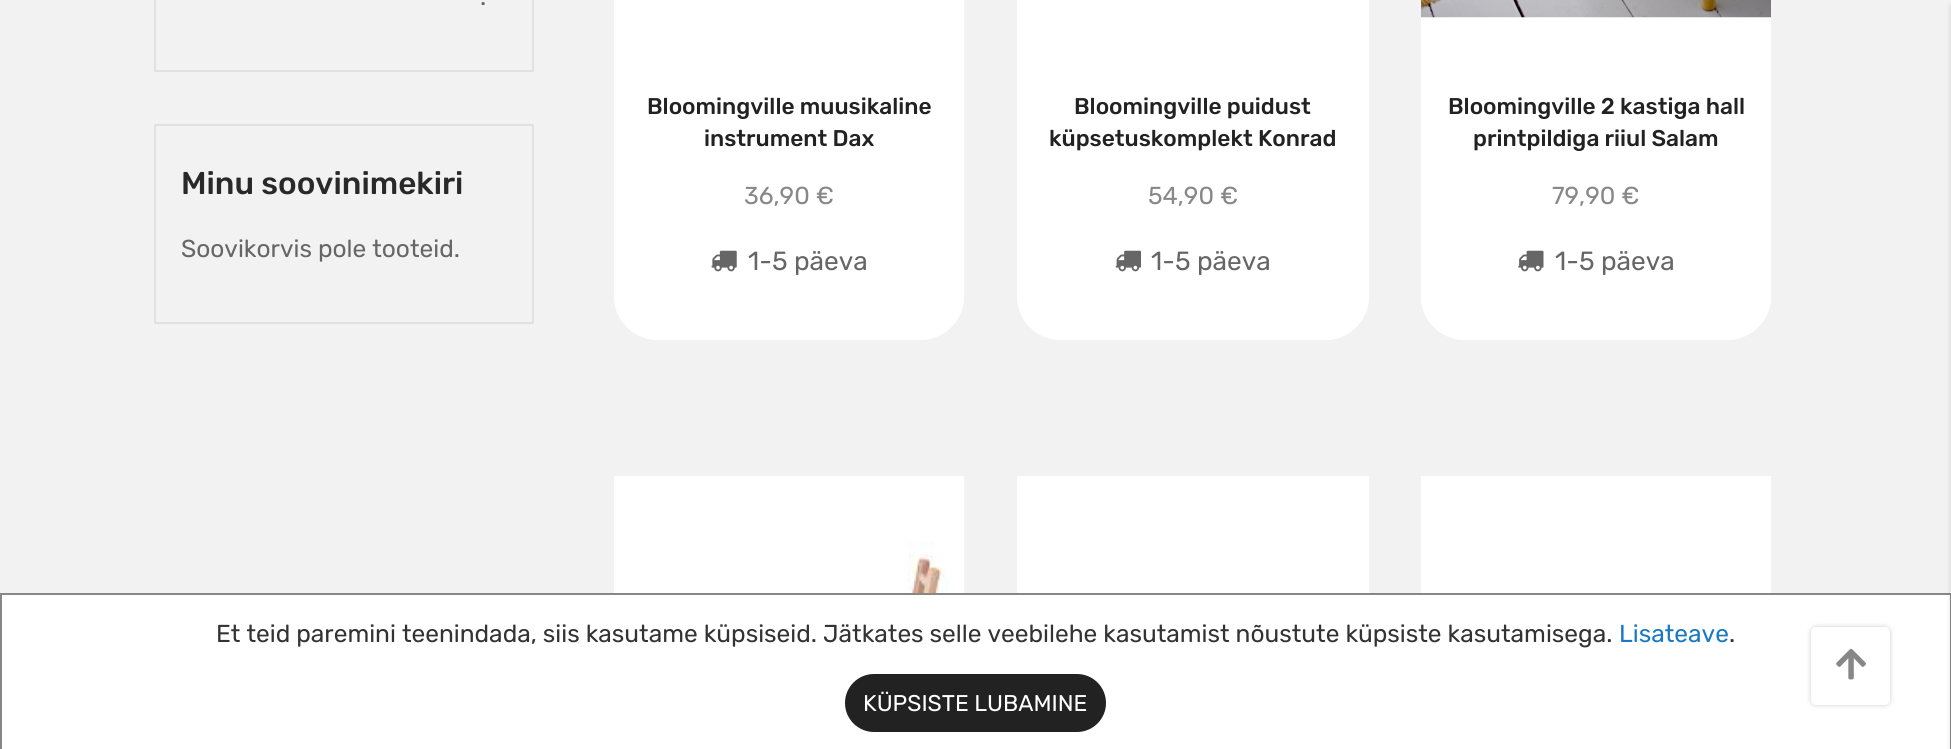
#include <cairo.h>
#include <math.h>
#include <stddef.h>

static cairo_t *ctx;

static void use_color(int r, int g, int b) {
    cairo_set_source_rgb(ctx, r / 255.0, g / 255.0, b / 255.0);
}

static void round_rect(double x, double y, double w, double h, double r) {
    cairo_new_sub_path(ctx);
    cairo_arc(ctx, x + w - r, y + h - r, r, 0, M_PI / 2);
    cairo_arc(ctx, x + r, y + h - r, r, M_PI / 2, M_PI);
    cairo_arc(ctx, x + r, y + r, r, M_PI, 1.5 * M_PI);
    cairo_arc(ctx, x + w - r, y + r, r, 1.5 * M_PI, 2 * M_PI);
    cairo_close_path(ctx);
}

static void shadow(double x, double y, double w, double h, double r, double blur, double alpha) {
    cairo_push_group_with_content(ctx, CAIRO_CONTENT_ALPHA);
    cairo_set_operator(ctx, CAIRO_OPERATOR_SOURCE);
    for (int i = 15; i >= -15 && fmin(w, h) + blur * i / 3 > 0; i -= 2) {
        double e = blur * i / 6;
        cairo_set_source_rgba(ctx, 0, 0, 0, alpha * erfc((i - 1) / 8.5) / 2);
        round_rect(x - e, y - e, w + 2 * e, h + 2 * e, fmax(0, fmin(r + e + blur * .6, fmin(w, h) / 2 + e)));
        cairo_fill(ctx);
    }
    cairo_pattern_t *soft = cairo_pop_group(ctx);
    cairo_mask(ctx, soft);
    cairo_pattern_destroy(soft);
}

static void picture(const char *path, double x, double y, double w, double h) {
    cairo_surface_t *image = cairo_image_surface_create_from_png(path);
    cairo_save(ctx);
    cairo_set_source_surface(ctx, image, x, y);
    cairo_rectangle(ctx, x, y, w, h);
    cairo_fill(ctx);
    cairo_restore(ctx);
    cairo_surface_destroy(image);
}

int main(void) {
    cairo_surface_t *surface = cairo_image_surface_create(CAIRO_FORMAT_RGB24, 1951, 749);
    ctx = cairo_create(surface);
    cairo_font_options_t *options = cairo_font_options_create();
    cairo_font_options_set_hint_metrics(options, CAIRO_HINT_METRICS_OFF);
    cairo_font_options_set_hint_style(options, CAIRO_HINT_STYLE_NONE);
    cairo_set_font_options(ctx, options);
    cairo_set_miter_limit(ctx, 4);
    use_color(242, 242, 242);
    cairo_paint(ctx);
    cairo_rectangle(ctx, 155, -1, 378, 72);
    use_color(225, 225, 225);
    cairo_stroke(ctx);
    cairo_select_font_face(ctx, "Rubik", CAIRO_FONT_SLANT_NORMAL, CAIRO_FONT_WEIGHT_NORMAL);
    cairo_set_font_size(ctx, 24.5);
    use_color(102, 102, 102);
    cairo_move_to(ctx, 480, 5);
    cairo_show_text(ctx, ".");
    cairo_rectangle(ctx, 155, 125, 378, 198);
    use_color(225, 225, 225);
    cairo_stroke(ctx);
    cairo_select_font_face(ctx, "Rubik Medium", CAIRO_FONT_SLANT_NORMAL, CAIRO_FONT_WEIGHT_NORMAL);
    cairo_set_font_size(ctx, 31.5);
    use_color(41, 41, 41);
    cairo_move_to(ctx, 181, 194);
    cairo_show_text(ctx, "Minu soovinimekiri");
    cairo_select_font_face(ctx, "Rubik", CAIRO_FONT_SLANT_NORMAL, CAIRO_FONT_WEIGHT_NORMAL);
    cairo_set_font_size(ctx, 24.5);
    use_color(102, 102, 102);
    cairo_move_to(ctx, 181, 257);
    cairo_show_text(ctx, "Soovikorvis pole tooteid.");
    use_color(255, 255, 255);
    round_rect(614, -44, 350, 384, 44);
    cairo_fill(ctx);
    cairo_new_path(ctx);
    cairo_move_to(ctx, 614, 74);
    cairo_line_to(ctx, 964, 74);
    cairo_line_to(ctx, 964, 296);
    cairo_curve_to(ctx, 964, 320.5, 944.5, 340, 920, 340);
    cairo_line_to(ctx, 658, 340);
    cairo_curve_to(ctx, 633.5, 340, 614, 320.5, 614, 296);
    cairo_close_path(ctx);
    cairo_fill(ctx);
    cairo_select_font_face(ctx, "Rubik Medium", CAIRO_FONT_SLANT_NORMAL, CAIRO_FONT_WEIGHT_NORMAL);
    cairo_set_font_size(ctx, 22.75);
    use_color(34, 34, 34);
    cairo_move_to(ctx, 647, 114);
    cairo_show_text(ctx, "Bloomingville muusikaline");
    cairo_move_to(ctx, 704, 146);
    cairo_show_text(ctx, "instrument Dax");
    cairo_select_font_face(ctx, "Rubik", CAIRO_FONT_SLANT_NORMAL, CAIRO_FONT_WEIGHT_NORMAL);
    cairo_set_font_size(ctx, 24.5);
    use_color(136, 136, 136);
    cairo_move_to(ctx, 744, 204);
    cairo_show_text(ctx, "36,90 €");
    picture("img1.png", 711, 250, 26, 22);
    cairo_set_font_size(ctx, 26.25);
    use_color(102, 102, 102);
    cairo_move_to(ctx, 748, 270);
    cairo_show_text(ctx, "1-5 päeva");
    use_color(255, 255, 255);
    round_rect(1017, -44, 352, 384, 44);
    cairo_fill(ctx);
    cairo_new_path(ctx);
    cairo_move_to(ctx, 1017, 74);
    cairo_line_to(ctx, 1369, 74);
    cairo_line_to(ctx, 1369, 296);
    cairo_curve_to(ctx, 1369, 320.5, 1349.5, 340, 1325, 340);
    cairo_line_to(ctx, 1061, 340);
    cairo_curve_to(ctx, 1036.5, 340, 1017, 320.5, 1017, 296);
    cairo_close_path(ctx);
    cairo_fill(ctx);
    cairo_select_font_face(ctx, "Rubik Medium", CAIRO_FONT_SLANT_NORMAL, CAIRO_FONT_WEIGHT_NORMAL);
    cairo_set_font_size(ctx, 22.75);
    use_color(34, 34, 34);
    cairo_move_to(ctx, 1074, 114);
    cairo_show_text(ctx, "Bloomingville puidust");
    cairo_move_to(ctx, 1049, 146);
    cairo_show_text(ctx, "küpsetuskomplekt Konrad");
    cairo_select_font_face(ctx, "Rubik", CAIRO_FONT_SLANT_NORMAL, CAIRO_FONT_WEIGHT_NORMAL);
    cairo_set_font_size(ctx, 24.5);
    use_color(136, 136, 136);
    cairo_move_to(ctx, 1148, 204);
    cairo_show_text(ctx, "54,90 €");
    picture("img2.png", 1115, 250, 26, 22);
    cairo_set_font_size(ctx, 26.25);
    use_color(102, 102, 102);
    cairo_move_to(ctx, 1151, 270);
    cairo_show_text(ctx, "1-5 päeva");
    use_color(255, 255, 255);
    round_rect(1421, -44, 350, 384, 44);
    cairo_fill(ctx);
    picture("img3.png", 1421, 0, 350, 18);
    cairo_new_path(ctx);
    cairo_move_to(ctx, 1421, 74);
    cairo_line_to(ctx, 1771, 74);
    cairo_line_to(ctx, 1771, 296);
    cairo_curve_to(ctx, 1771, 320.5, 1751.5, 340, 1727, 340);
    cairo_line_to(ctx, 1465, 340);
    cairo_curve_to(ctx, 1440.5, 340, 1421, 320.5, 1421, 296);
    cairo_close_path(ctx);
    cairo_fill(ctx);
    cairo_select_font_face(ctx, "Rubik Medium", CAIRO_FONT_SLANT_NORMAL, CAIRO_FONT_WEIGHT_NORMAL);
    cairo_set_font_size(ctx, 22.75);
    use_color(34, 34, 34);
    cairo_move_to(ctx, 1448, 114);
    cairo_show_text(ctx, "Bloomingville 2 kastiga hall");
    cairo_move_to(ctx, 1473, 146);
    cairo_show_text(ctx, "printpildiga riiul Salam");
    cairo_select_font_face(ctx, "Rubik", CAIRO_FONT_SLANT_NORMAL, CAIRO_FONT_WEIGHT_NORMAL);
    cairo_set_font_size(ctx, 24.5);
    use_color(136, 136, 136);
    cairo_move_to(ctx, 1552, 204);
    cairo_show_text(ctx, "79,90 €");
    picture("img4.png", 1518, 250, 26, 22);
    cairo_set_font_size(ctx, 26.25);
    use_color(102, 102, 102);
    cairo_move_to(ctx, 1555, 270);
    cairo_show_text(ctx, "1-5 päeva");
    use_color(255, 255, 255);
    cairo_rectangle(ctx, 614, 476, 350, 117);
    cairo_fill(ctx);
    picture("img5.png", 664, 541, 284, 52);
    cairo_rectangle(ctx, 1017, 476, 352, 117);
    cairo_fill(ctx);
    cairo_rectangle(ctx, 1421, 476, 350, 117);
    cairo_fill(ctx);
    cairo_rectangle(ctx, 2, 595, 1948, 154);
    cairo_fill(ctx);
    use_color(135, 135, 135);
    cairo_rectangle(ctx, 0, 593, 1951, 2);
    cairo_fill(ctx);
    cairo_rectangle(ctx, 1950, 593, 1, 156);
    cairo_fill(ctx);
    use_color(0, 0, 0);
    shadow(1951, 5, 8, 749, 0, 2.5, 0.15);
    shadow(1811, 627, 79, 78, 5, 2.5, 0.2);
    use_color(255, 255, 255);
    round_rect(1811, 627, 79, 78, 5);
    cairo_fill(ctx);
    picture("img6.png", 1836, 648, 30, 32);
    use_color(135, 135, 135);
    cairo_rectangle(ctx, 0, 593, 2, 156);
    cairo_fill(ctx);
    cairo_set_font_size(ctx, 24.5);
    use_color(51, 51, 51);
    cairo_move_to(ctx, 216, 642);
    cairo_show_text(ctx, "Et teid paremini teenindada, siis kasutame küpsiseid. Jätkates selle veebilehe kasutamist nõustute küpsiste kasutamisega.");
    use_color(25, 121, 195);
    cairo_move_to(ctx, 1619, 642);
    cairo_show_text(ctx, "Lisateave");
    use_color(51, 51, 51);
    cairo_move_to(ctx, 1729, 642);
    cairo_show_text(ctx, ".");
    use_color(34, 34, 34);
    round_rect(845, 674, 261, 58, 29);
    cairo_fill(ctx);
    cairo_set_font_size(ctx, 22.75);
    use_color(255, 255, 255);
    cairo_move_to(ctx, 863, 711);
    cairo_show_text(ctx, "KÜPSISTE LUBAMINE");
    cairo_surface_write_to_png(surface, "result.png");
    cairo_font_options_destroy(options);
    cairo_destroy(ctx);
    cairo_surface_destroy(surface);
    return 0;
}
